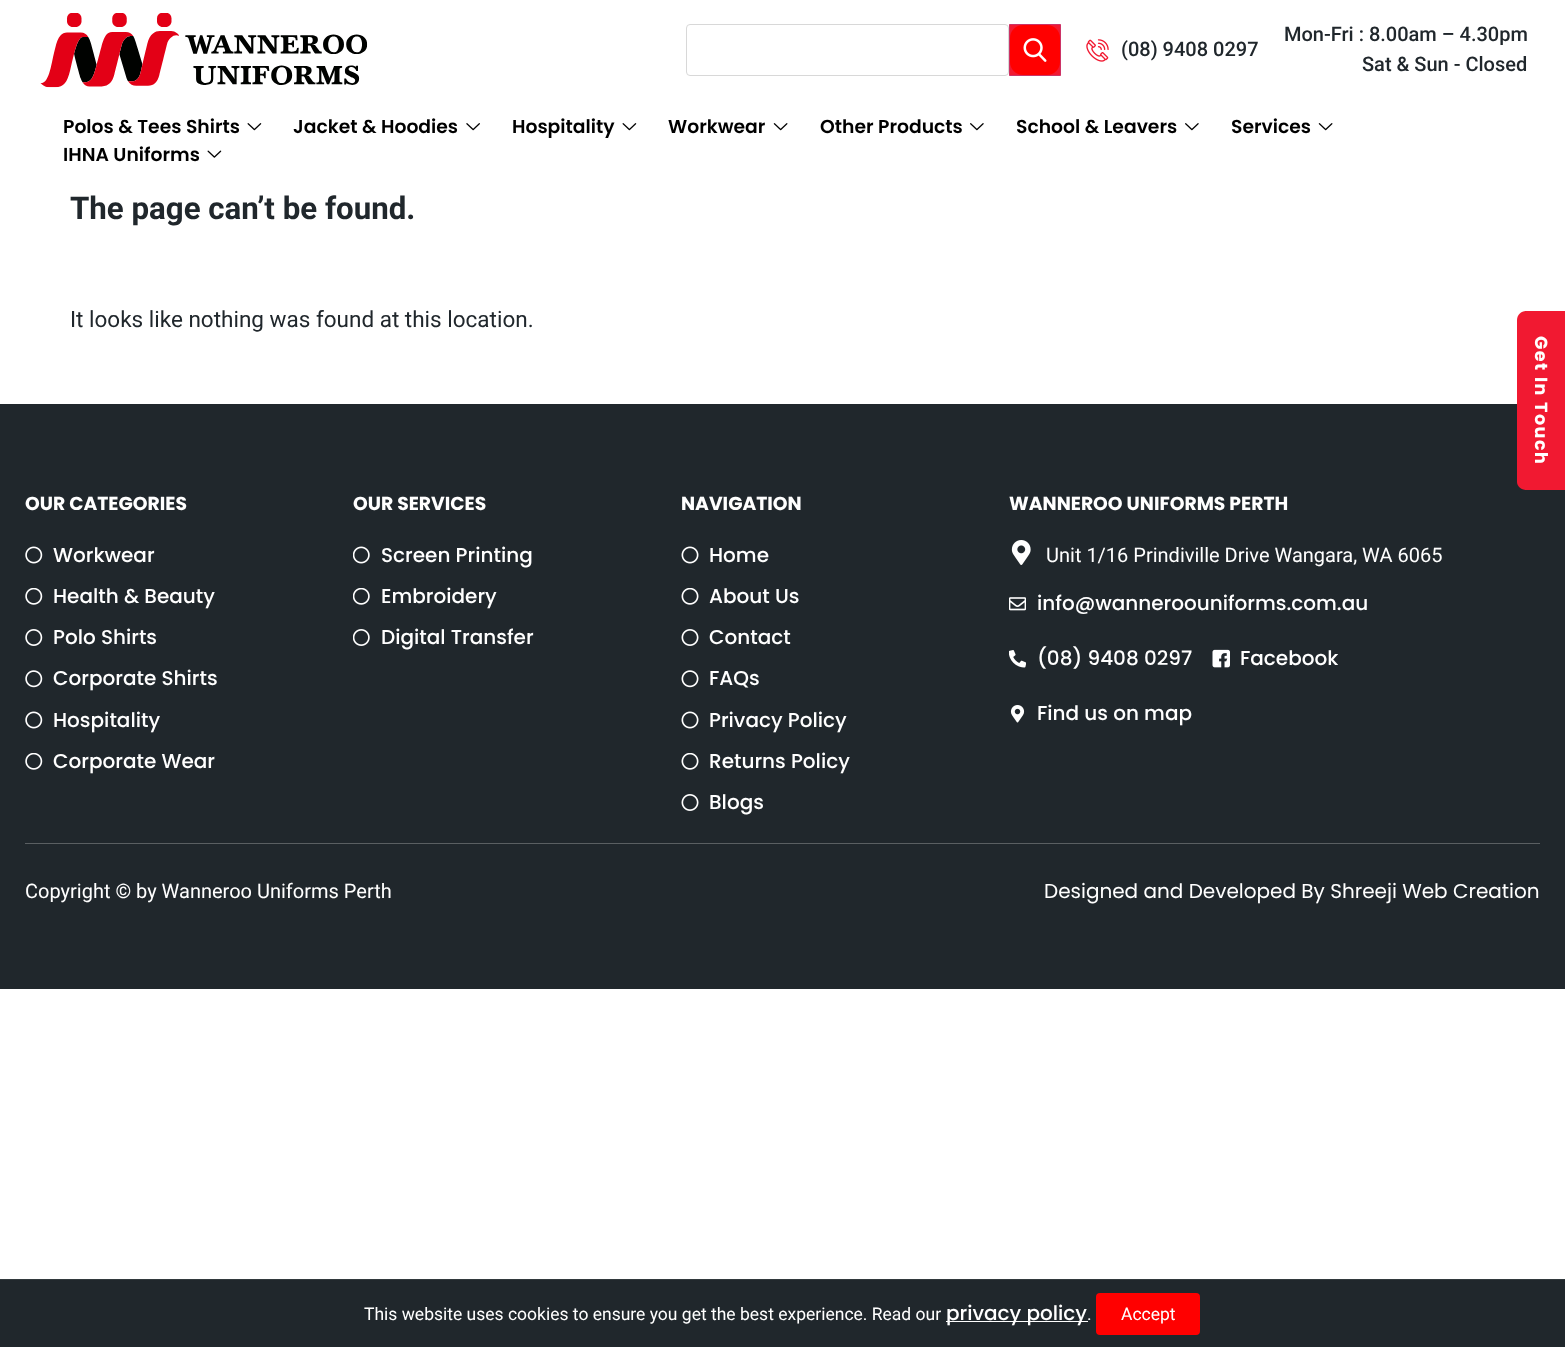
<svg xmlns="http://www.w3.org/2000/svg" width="1565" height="1347">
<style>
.a{font:500 20px Roboto;fill:#20272c}
.b{font:600 18.75px Poppins;fill:#000}
.c{font:bold 31.25px Roboto;fill:#20272c}
.d{font:22.5px Roboto;fill:#20272c}
.e{font:bold 17.5px Poppins;letter-spacing:1.5px;fill:#fff}
.f{font:bold 18.75px Poppins;fill:#fff}
.g{font:500 20px Poppins;fill:#fff}
.h{font:20px Roboto;fill:#fff}
.i{font:20px Poppins;fill:#fff}
.j{font:17.5px Roboto;fill:#fff}
</style>
<rect width="100%" height="100%" fill="#fff"/>
<image href="1.png" x="40" y="13" width="328" height="75"/>
<rect fill="none" stroke="#d8d8d8" x="686.5" y="24.5" width="322" height="51" rx="3.5"/>
<path fill="#f11931" stroke="#c36" d="M1009.5 24.5h51v51H1009.5z"/>
<image href="2.png" x="1010" y="25" width="50" height="50"/>
<image href="3.png" x="1086" y="39" width="23" height="23"/>
<image href="4.png" x="247" y="123" width="15" height="8"/>
<image href="5.png" x="466" y="123" width="14" height="8"/>
<image href="4.png" x="622" y="123" width="15" height="8"/>
<image href="6.png" x="773" y="123" width="15" height="8"/>
<image href="7.png" x="970" y="123" width="14" height="8"/>
<image href="7.png" x="1185" y="123" width="14" height="8"/>
<image href="6.png" x="1318" y="123" width="15" height="8"/>
<image href="8.png" x="207" y="150" width="15" height="8"/>
<path fill="#20272c" d="M0 404h1565v585H0z"/>
<path fill="#f11931" d="M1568 311v179h-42c-5 0-9-4-9-8v-162c0-5 4-9 9-9z"/>
<image href="9.png" x="25" y="546" width="18" height="18"/>
<image href="10.png" x="25" y="588" width="18" height="17"/>
<image href="11.png" x="25" y="629" width="18" height="17"/>
<image href="12.png" x="25" y="670" width="18" height="18"/>
<image href="9.png" x="25" y="711" width="18" height="18"/>
<image href="10.png" x="25" y="753" width="18" height="17"/>
<image href="13.png" x="353" y="546" width="17" height="18"/>
<image href="14.png" x="353" y="588" width="17" height="17"/>
<image href="15.png" x="353" y="629" width="17" height="17"/>
<image href="16.png" x="681" y="546" width="18" height="18"/>
<image href="17.png" x="681" y="588" width="18" height="17"/>
<image href="18.png" x="681" y="629" width="18" height="17"/>
<image href="19.png" x="681" y="670" width="18" height="18"/>
<image href="16.png" x="681" y="711" width="18" height="18"/>
<image href="17.png" x="681" y="753" width="18" height="17"/>
<image href="18.png" x="681" y="794" width="18" height="17"/>
<image href="20.png" x="1011" y="540" width="20" height="25"/>
<image href="21.png" x="1009" y="597" width="17" height="14"/>
<image href="22.png" x="1009" y="650" width="17" height="18"/>
<image href="23.png" x="1212" y="649" width="18" height="19"/>
<image href="24.png" x="1010" y="705" width="15" height="18"/>
<path fill="#5a5f62" d="M25 843h1515v1H25z"/>
<path fill="#20272c" d="M0 1280h1565v67H0z"/>
<path fill="#32393d" d="M0 1279h1565v1H0z"/>
<path fill="#fff" d="M946 1321h142v1H946z"/>
<rect fill="#f00" x="1096" y="1293" width="104" height="42" rx="4"/>
<text class="a" x="1121" y="56">(08) 9408 0297</text>
<text class="a" x="1284" y="41">Mon-Fri : 8.00am – 4.30pm</text>
<text class="a" x="1362" y="71">Sat &amp; Sun - Closed</text>
<text class="b" x="63" y="133">Polos &amp; Tees Shirts</text>
<text class="b" x="293" y="133">Jacket &amp; Hoodies</text>
<text class="b" x="512" y="133">Hospitality</text>
<text class="b" x="668" y="133">Workwear</text>
<text class="b" x="820" y="133">Other Products</text>
<text class="b" x="1016" y="133">School &amp; Leavers</text>
<text class="b" x="1231" y="133">Services</text>
<text class="b" x="63" y="161">IHNA Uniforms</text>
<text class="c" x="70" y="219">The page can’t be found.</text>
<text class="d" x="70" y="327">It looks like nothing was found at this location.</text>
<text class="e" x="1535" y="336" transform="rotate(90 1535 336)">Get In Touch</text>
<text class="f" x="25" y="510">OUR CATEGORIES</text>
<text class="g" x="53" y="562">Workwear</text>
<text class="g" x="53" y="603">Health &amp; Beauty</text>
<text class="g" x="53" y="644">Polo Shirts</text>
<text class="g" x="53" y="685">Corporate Shirts</text>
<text class="g" x="53" y="727">Hospitality</text>
<text class="g" x="53" y="768">Corporate Wear</text>
<text class="f" x="353" y="510">OUR SERVICES</text>
<text class="g" x="381" y="562">Screen Printing</text>
<text class="g" x="381" y="603">Embroidery</text>
<text class="g" x="381" y="644">Digital Transfer</text>
<text class="f" x="681" y="510">NAVIGATION</text>
<text class="g" x="709" y="562">Home</text>
<text class="g" x="709" y="603">About Us</text>
<text class="g" x="709" y="644">Contact</text>
<text class="g" x="709" y="685">FAQs</text>
<text class="g" x="709" y="727">Privacy Policy</text>
<text class="g" x="709" y="768">Returns Policy</text>
<text class="g" x="709" y="809">Blogs</text>
<text class="f" x="1009" y="510">WANNEROO UNIFORMS PERTH</text>
<text class="h" x="1046" y="562">Unit 1/16 Prindiville Drive Wangara, WA 6065</text>
<text class="g" x="1037" y="610">info@wanneroouniforms.com.au</text>
<text class="g" x="1037" y="665">(08) 9408 0297</text>
<text class="g" x="1240" y="665">Facebook</text>
<text class="g" x="1037" y="720">Find us on map</text>
<text class="h" x="25" y="898">Copyright © by Wanneroo Uniforms Perth</text>
<text class="i" x="1044" y="898">Designed and Developed By Shreeji Web Creation</text>
<text class="j" x="364" y="1320">This website uses cookies to ensure you get the best experience. Read our</text>
<text class="g" x="946" y="1320">privacy policy</text>
<text class="j" x="1087" y="1320">.</text>
<text class="j" x="1121" y="1320">Accept</text>
</svg>
